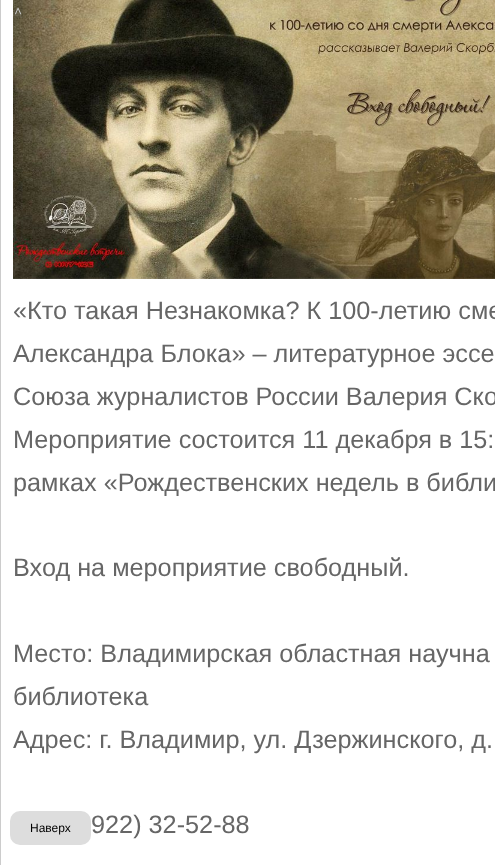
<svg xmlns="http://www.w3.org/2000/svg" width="495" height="865">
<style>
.a{font:bold 14px Liberation Serif;fill:#ccc}
.b{font:12px Liberation Sans;fill:#000}
.c{font:25.25px Liberation Sans;fill:#666}
</style>
<rect width="100%" height="100%" fill="#fff"/>
<rect fill="#ddd" x="10" y="811" width="81" height="34" rx="10"/>
<path fill="#ccc" d="M0 0h1v865H0z"/>
<image href="1.png" x="13" y="0" width="482" height="279"/>
<text class="a" x="14" y="17">^</text>
<text class="b" x="30" y="832">Наверх</text>
<text class="c" x="13" y="319">«Кто такая Незнакомка? К 100-летию сме</text>
<text class="c" x="13" y="362">Александра Блока» – литературное эссе</text>
<text class="c" x="13" y="405">Союза журналистов России Валерия Ско</text>
<text class="c" x="13" y="448">Мероприятие состоится 11 декабря в 15:</text>
<text class="c" x="13" y="491">рамках «Рождественских недель в библи</text>
<text class="c" x="13" y="576">Вход на мероприятие свободный.</text>
<text class="c" x="13" y="662">Место: Владимирская областная научна</text>
<text class="c" x="13" y="705">библиотека</text>
<text class="c" x="13" y="748">Адрес: г. Владимир, ул. Дзержинского, д.</text>
<text class="c" x="91" y="833">922) 32-52-88</text>
</svg>
